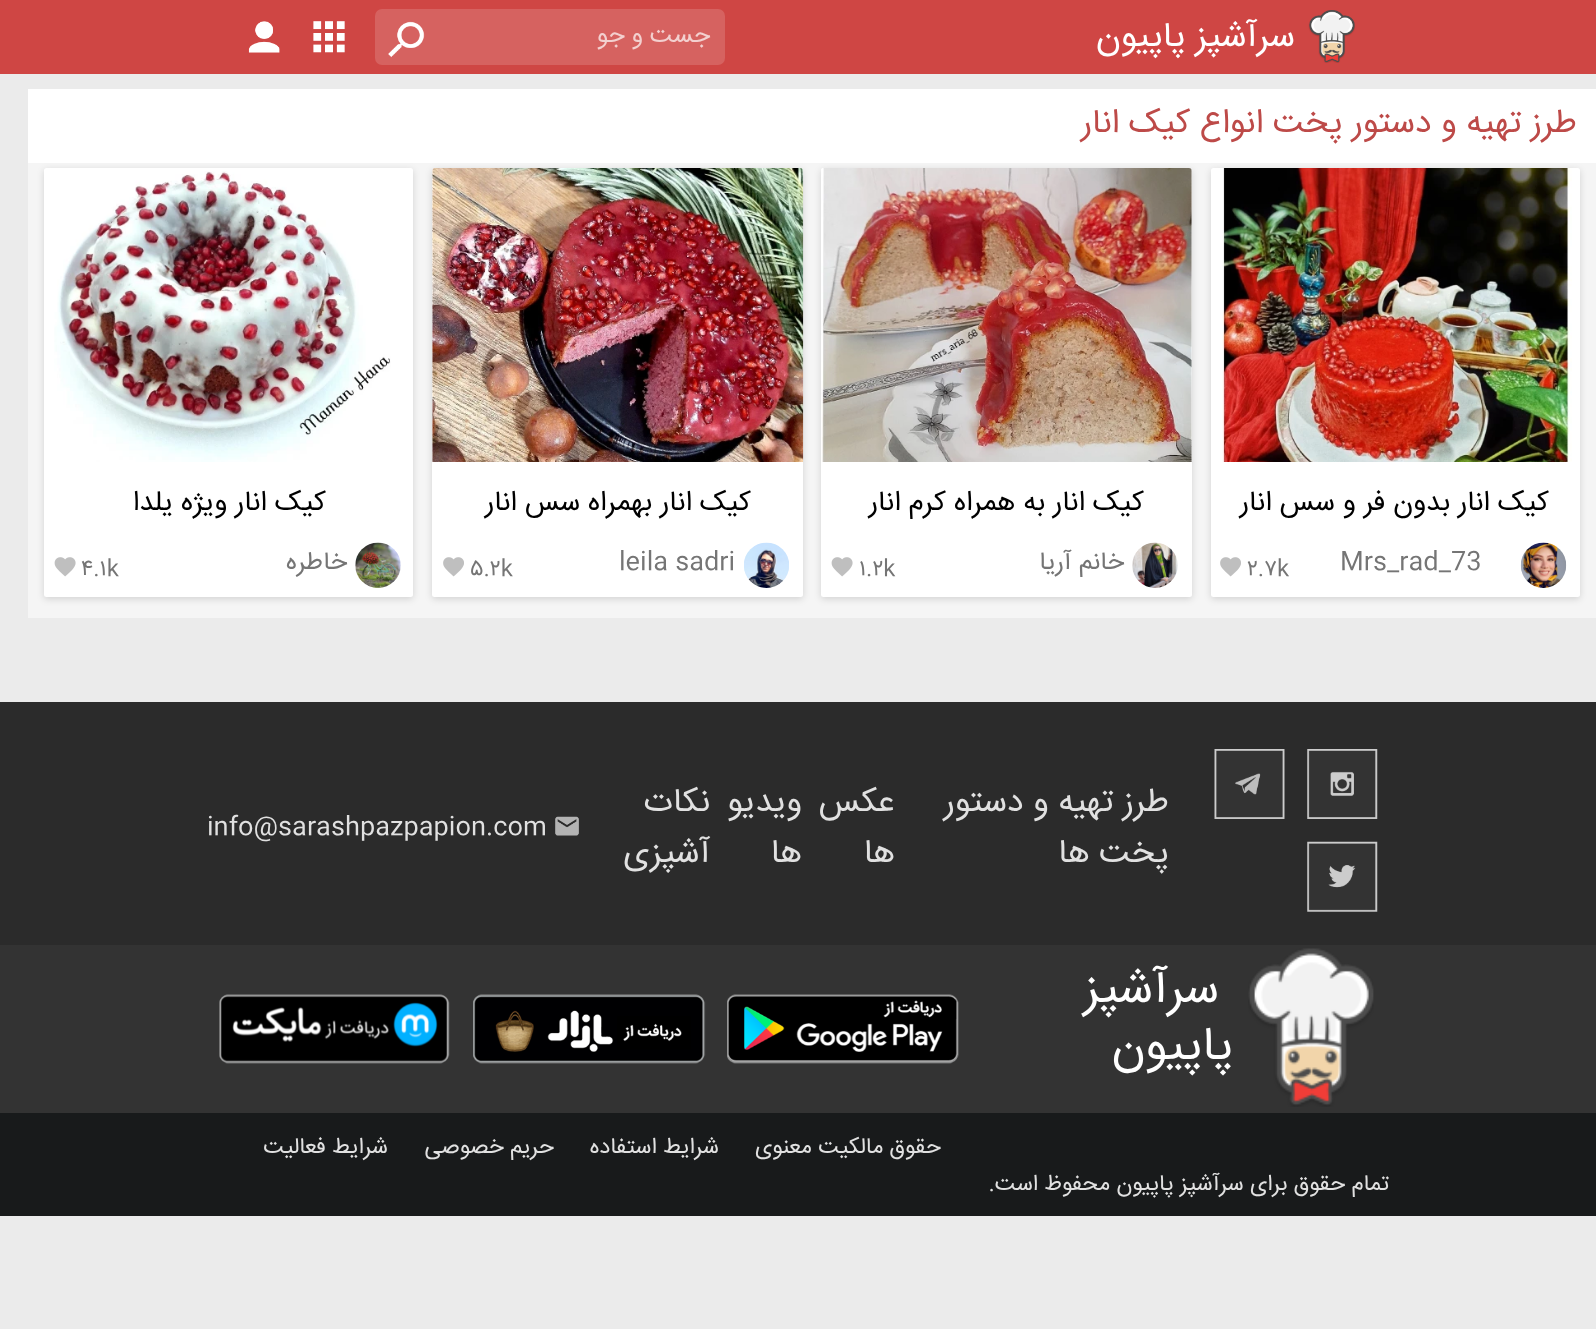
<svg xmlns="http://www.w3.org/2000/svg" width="1596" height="1329">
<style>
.a{font:35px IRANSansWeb;direction:rtl;fill:#fff}
.b{font:24.5px IRANSansWeb;direction:rtl;fill:#f3d0cf}
.c{font:33.6px IRANSansWeb;direction:rtl;fill:#bd4a48}
.d{font:28px IRANSansWeb;direction:rtl;fill:#000}
.e{font:25.25px IRANSansWeb;fill:#757575}
.f{font:22.4px IRANSansWeb;fill:#757575}
.g{font:25.25px IRANSansWeb;direction:rtl;fill:#757575}
.h{font:33.6px IRANSansWeb;direction:rtl;fill:#e1e1e1}
.i{font:25.25px IRANSansWeb;fill:#e1e1e1}
.j{font:47.5px IRANSansWeb;direction:rtl;fill:#fff}
.k{font:22.4px IRANSansWeb;direction:rtl;fill:#e1e1e1}
</style>
<rect width="100%" height="100%" fill="#ebebeb"/>
<path fill="#cf4644" d="M0 0h1596v74H0z"/>
<image href="1.png" x="1308" y="10" width="47" height="53"/>
<rect fill="#d66260" x="375" y="9" width="350" height="56" rx="7"/>
<image href="2.png" x="388" y="21" width="37" height="37"/>
<image href="3.png" x="313" y="21" width="32" height="32"/>
<image href="4.png" x="248" y="21" width="32" height="32"/>
<path fill="#fff" d="M28 89h1568v74H28z"/>
<path fill="#f5f5f5" d="M28 163h1568v455H28z"/>
<rect fill="#00000024" filter="blur(3.5px)" x="1211" y="170" width="369" height="429" rx="2.5"/>
<rect fill="#fff" x="1211" y="168" width="369" height="429" rx="2.5"/>
<image href="5.png" x="1222" y="168" width="350" height="294"/>
<image href="6.png" x="1520" y="542" width="47" height="46"/>
<image href="7.png" x="1220" y="557" width="21" height="20"/>
<rect fill="#00000024" filter="blur(3.5px)" x="821" y="170" width="371" height="429" rx="2.5"/>
<rect fill="#fff" x="821" y="168" width="371" height="429" rx="2.5"/>
<image href="8.png" x="821" y="168" width="371" height="294"/>
<image href="9.png" x="1132" y="542" width="46" height="46"/>
<image href="10.png" x="831" y="557" width="22" height="20"/>
<rect fill="#00000024" filter="blur(3.5px)" x="432" y="170" width="371" height="429" rx="2.5"/>
<rect fill="#fff" x="432" y="168" width="371" height="429" rx="2.5"/>
<image href="11.png" x="432" y="168" width="372" height="294"/>
<image href="12.png" x="744" y="542" width="45" height="46"/>
<image href="7.png" x="443" y="557" width="21" height="20"/>
<rect fill="#00000024" filter="blur(3.5px)" x="44" y="170" width="369" height="429" rx="2.5"/>
<rect fill="#fff" x="44" y="168" width="369" height="429" rx="2.5"/>
<image href="13.png" x="54" y="171" width="337" height="291"/>
<image href="14.png" x="355" y="542" width="46" height="46"/>
<image href="10.png" x="54" y="557" width="22" height="20"/>
<path fill="#2b2b2b" d="M0 702h1596v243H0z"/>
<image href="15.png" x="1307" y="749" width="71" height="70"/>
<image href="16.png" x="1214" y="749" width="71" height="70"/>
<image href="17.png" x="1307" y="841" width="71" height="71"/>
<image href="18.png" x="555" y="816" width="24" height="20"/>
<path fill="#333" d="M0 945h1596v168H0z"/>
<image href="19.png" x="1248" y="948" width="126" height="159"/>
<image href="20.png" x="727" y="994" width="232" height="70"/>
<image href="21.png" x="473" y="994" width="233" height="70"/>
<image href="22.png" x="219" y="994" width="231" height="70"/>
<path fill="#181a1b" d="M0 1113h1596v103H0z"/>
<text class="a" x="1295" y="46">سرآشپز پاپیون</text>
<text class="b" x="710" y="42">جست و جو</text>
<text class="c" x="1577" y="132">طرز تهیه و دستور پخت انواع کیک انار</text>
<text class="d" x="1549" y="510">کیک انار بدون فر و سس انار</text>
<text class="e" x="1340" y="569">Mrs_rad_73</text>
<text class="f" x="1247" y="575">۲.۷k</text>
<text class="d" x="1144" y="510">کیک انار به همراه کرم انار</text>
<text class="g" x="1124" y="569">خانم آریا</text>
<text class="f" x="859" y="575">۱.۲k</text>
<text class="d" x="751" y="510">کیک انار بهمراه سس انار</text>
<text class="e" x="619" y="569">leila sadri</text>
<text class="f" x="470" y="575">۵.۲k</text>
<text class="d" x="326" y="510">کیک انار ویژه یلدا</text>
<text class="g" x="347" y="569">خاطره</text>
<text class="f" x="81" y="575">۴.۱k</text>
<text class="h" x="1169" y="811">طرز تهیه و دستور</text>
<text class="h" x="1169" y="862">پخت ها</text>
<text class="h" x="895" y="811">عکس</text>
<text class="h" x="895" y="862">ها</text>
<text class="h" x="802" y="811">ویدیو</text>
<text class="h" x="802" y="862">ها</text>
<text class="h" x="710" y="811">نکات</text>
<text class="h" x="710" y="862">آشپزی</text>
<text class="i" x="207" y="834">info@sarashpazpapion.com</text>
<text class="j" x="1219" y="1002">سرآشپز</text>
<text class="j" x="1233" y="1059">پاپیون</text>
<text class="k" x="941" y="1153">حقوق مالکیت معنوی</text>
<text class="k" x="719" y="1153">شرایط استفاده</text>
<text class="k" x="554" y="1153">حریم خصوصی</text>
<text class="k" x="388" y="1153">شرایط فعالیت</text>
<text class="k" x="1389" y="1190">تمام حقوق برای سرآشپز پاپیون محفوظ است.</text>
</svg>
